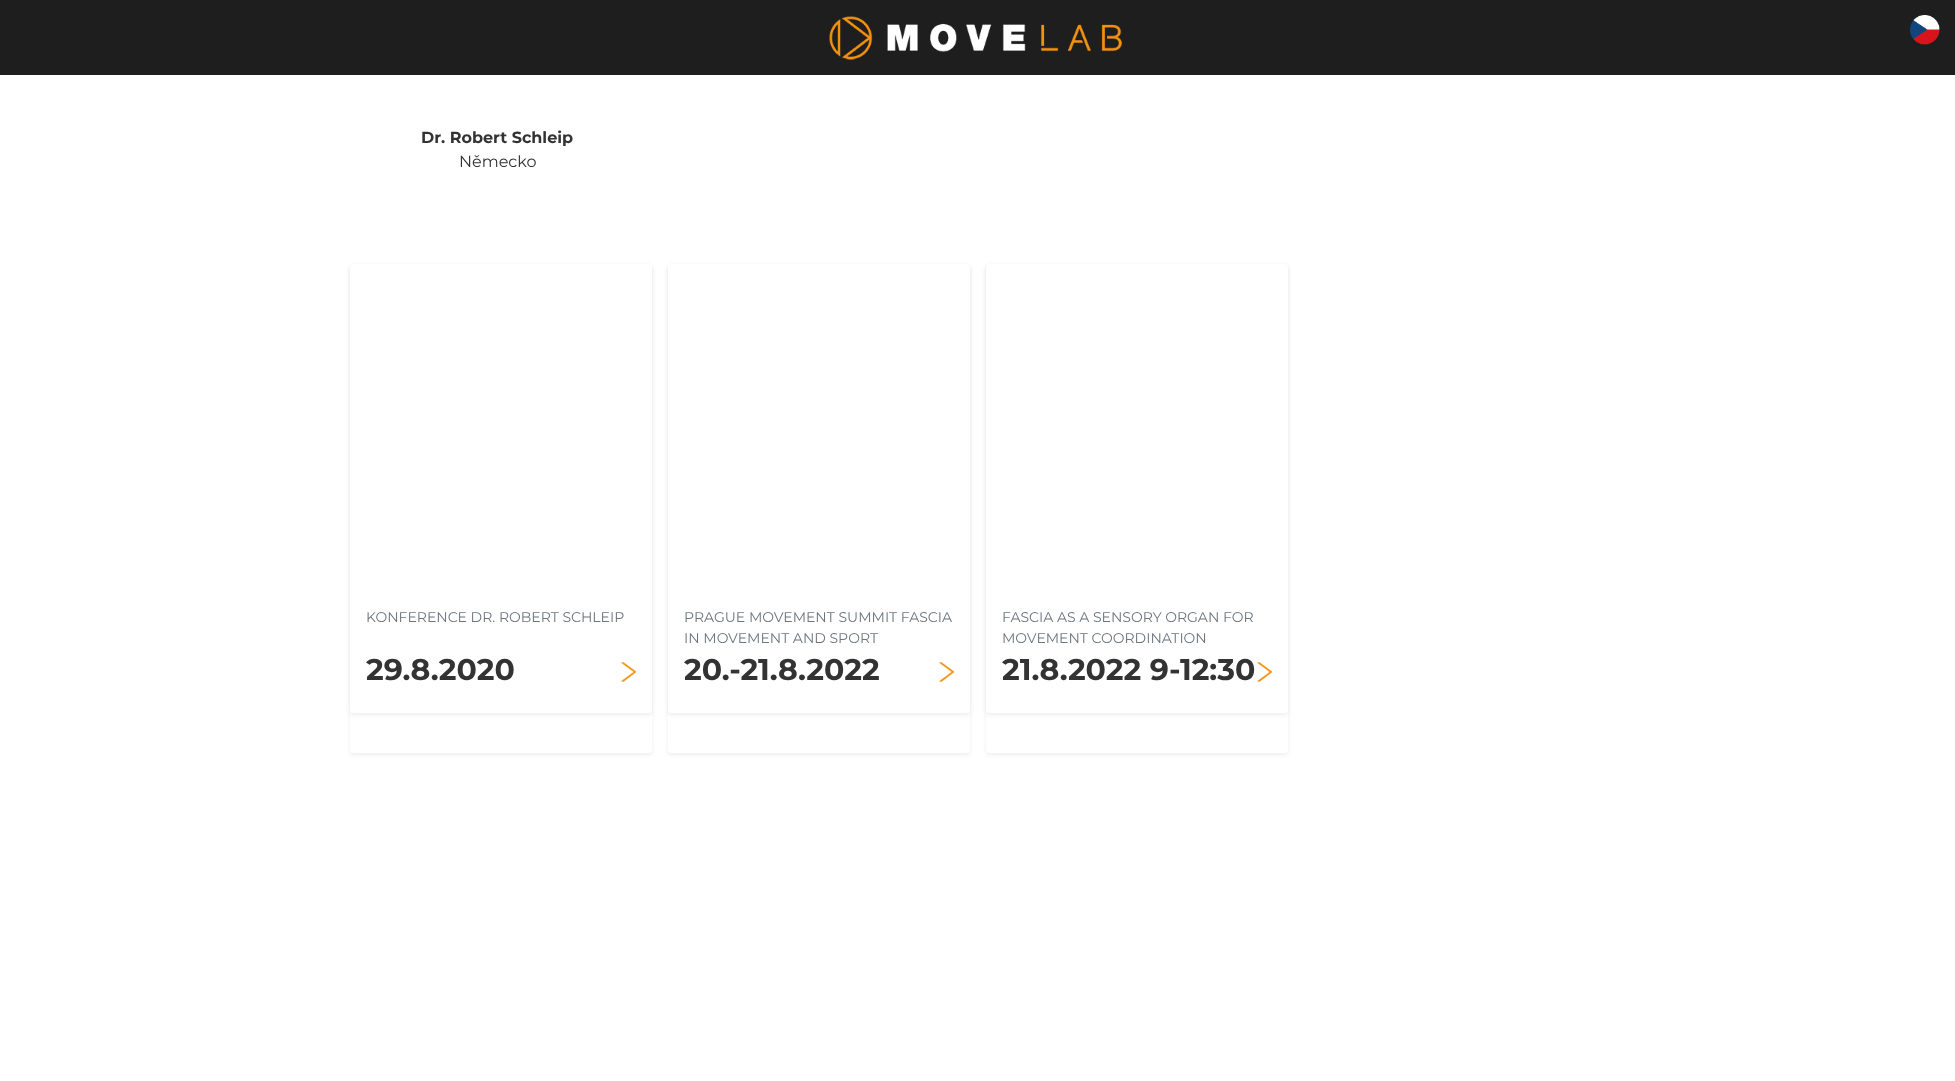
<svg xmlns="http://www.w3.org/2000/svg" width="1955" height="1081">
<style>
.a{font:bold 16px Montserrat;fill:#333}
.b{font:16px Montserrat;fill:#333}
.c{font:14px Montserrat;fill:#6c757d}
.d{font:bold 30px Montserrat;fill:#333}
</style>
<rect width="100%" height="100%" fill="#fff"/>
<path fill="#1e1e1e" d="M0 0h1955v75H0z"/>
<image href="1.png" x="829" y="16" width="293" height="44"/>
<image href="2.png" x="1910" y="15" width="30" height="30"/>
<rect fill="#00000012" filter="blur(2px)" x="350" y="266" width="302" height="489" rx="4"/>
<rect fill="#fff" x="350" y="264" width="302" height="489" rx="4"/>
<rect fill="#00000012" filter="blur(2px)" x="350" y="266" width="302" height="449" rx="4"/>
<rect fill="#fff" x="350" y="264" width="302" height="449" rx="4"/>
<image href="3.png" x="621" y="662" width="15" height="20"/>
<rect fill="#00000012" filter="blur(2px)" x="668" y="266" width="302" height="489" rx="4"/>
<rect fill="#fff" x="668" y="264" width="302" height="489" rx="4"/>
<rect fill="#00000012" filter="blur(2px)" x="668" y="266" width="302" height="449" rx="4"/>
<rect fill="#fff" x="668" y="264" width="302" height="449" rx="4"/>
<image href="3.png" x="939" y="662" width="15" height="20"/>
<rect fill="#00000012" filter="blur(2px)" x="986" y="266" width="302" height="489" rx="4"/>
<rect fill="#fff" x="986" y="264" width="302" height="489" rx="4"/>
<rect fill="#00000012" filter="blur(2px)" x="986" y="266" width="302" height="449" rx="4"/>
<rect fill="#fff" x="986" y="264" width="302" height="449" rx="4"/>
<image href="3.png" x="1257" y="662" width="15" height="20"/>
<text class="a" x="421" y="143">Dr. Robert Schleip</text>
<text class="b" x="459" y="167">Německo</text>
<text class="c" x="366" y="622">KONFERENCE DR. ROBERT SCHLEIP</text>
<text class="d" x="366" y="680">29.8.2020</text>
<text class="c" x="684" y="622">PRAGUE MOVEMENT SUMMIT FASCIA</text>
<text class="c" x="684" y="643">IN MOVEMENT AND SPORT</text>
<text class="d" x="684" y="680">20.-21.8.2022</text>
<text class="c" x="1002" y="622">FASCIA AS A SENSORY ORGAN FOR</text>
<text class="c" x="1002" y="643">MOVEMENT COORDINATION</text>
<text class="d" x="1002" y="680">21.8.2022 9-12:30</text>
</svg>
